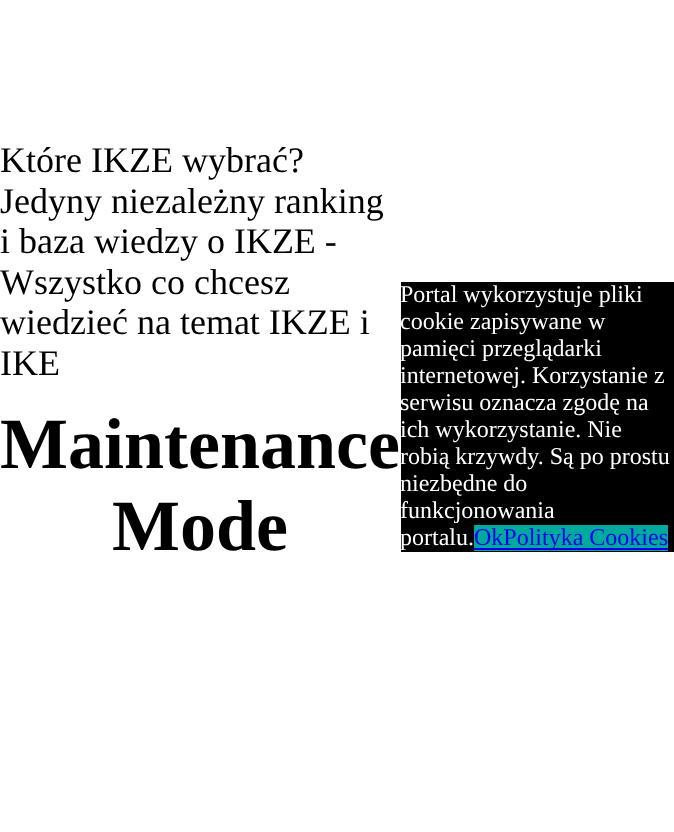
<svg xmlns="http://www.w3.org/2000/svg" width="674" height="832">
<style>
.a{font:36px Liberation Serif;fill:#000}
.b{font:bold 72px Liberation Serif;fill:#000}
.c{font:24px Liberation Serif;fill:#fff}
.d{font:24px Liberation Serif;fill:#00e}
</style>
<rect width="100%" height="100%" fill="#fff"/>
<path fill="#000" d="M401 282h273v270H401z"/>
<path fill="#00a99d" d="M474 525h194v26H474z"/>
<path fill="#00e" d="M474 548h194v2H474z"/>
<text class="a" x="0" y="172">Które IKZE wybrać?</text>
<text class="a" x="0" y="213">Jedyny niezależny ranking</text>
<text class="a" x="0" y="253">i baza wiedzy o IKZE -</text>
<text class="a" x="0" y="294">Wszystko co chcesz</text>
<text class="a" x="0" y="334">wiedzieć na temat IKZE i</text>
<text class="a" x="0" y="375">IKE</text>
<text class="b" x="0" y="468">Maintenance</text>
<text class="b" x="112" y="550">Mode</text>
<text class="c" x="400" y="302">Portal wykorzystuje pliki</text>
<text class="c" x="400" y="329">cookie zapisywane w</text>
<text class="c" x="400" y="356">pamięci przeglądarki</text>
<text class="c" x="400" y="383">internetowej. Korzystanie z</text>
<text class="c" x="400" y="410">serwisu oznacza zgodę na</text>
<text class="c" x="400" y="437">ich wykorzystanie. Nie</text>
<text class="c" x="400" y="464">robią krzywdy. Są po prostu</text>
<text class="c" x="400" y="491">niezbędne do</text>
<text class="c" x="400" y="518">funkcjonowania</text>
<text class="c" x="400" y="545">portalu.</text>
<text class="d" x="474" y="545">OkPolityka Cookies</text>
</svg>
